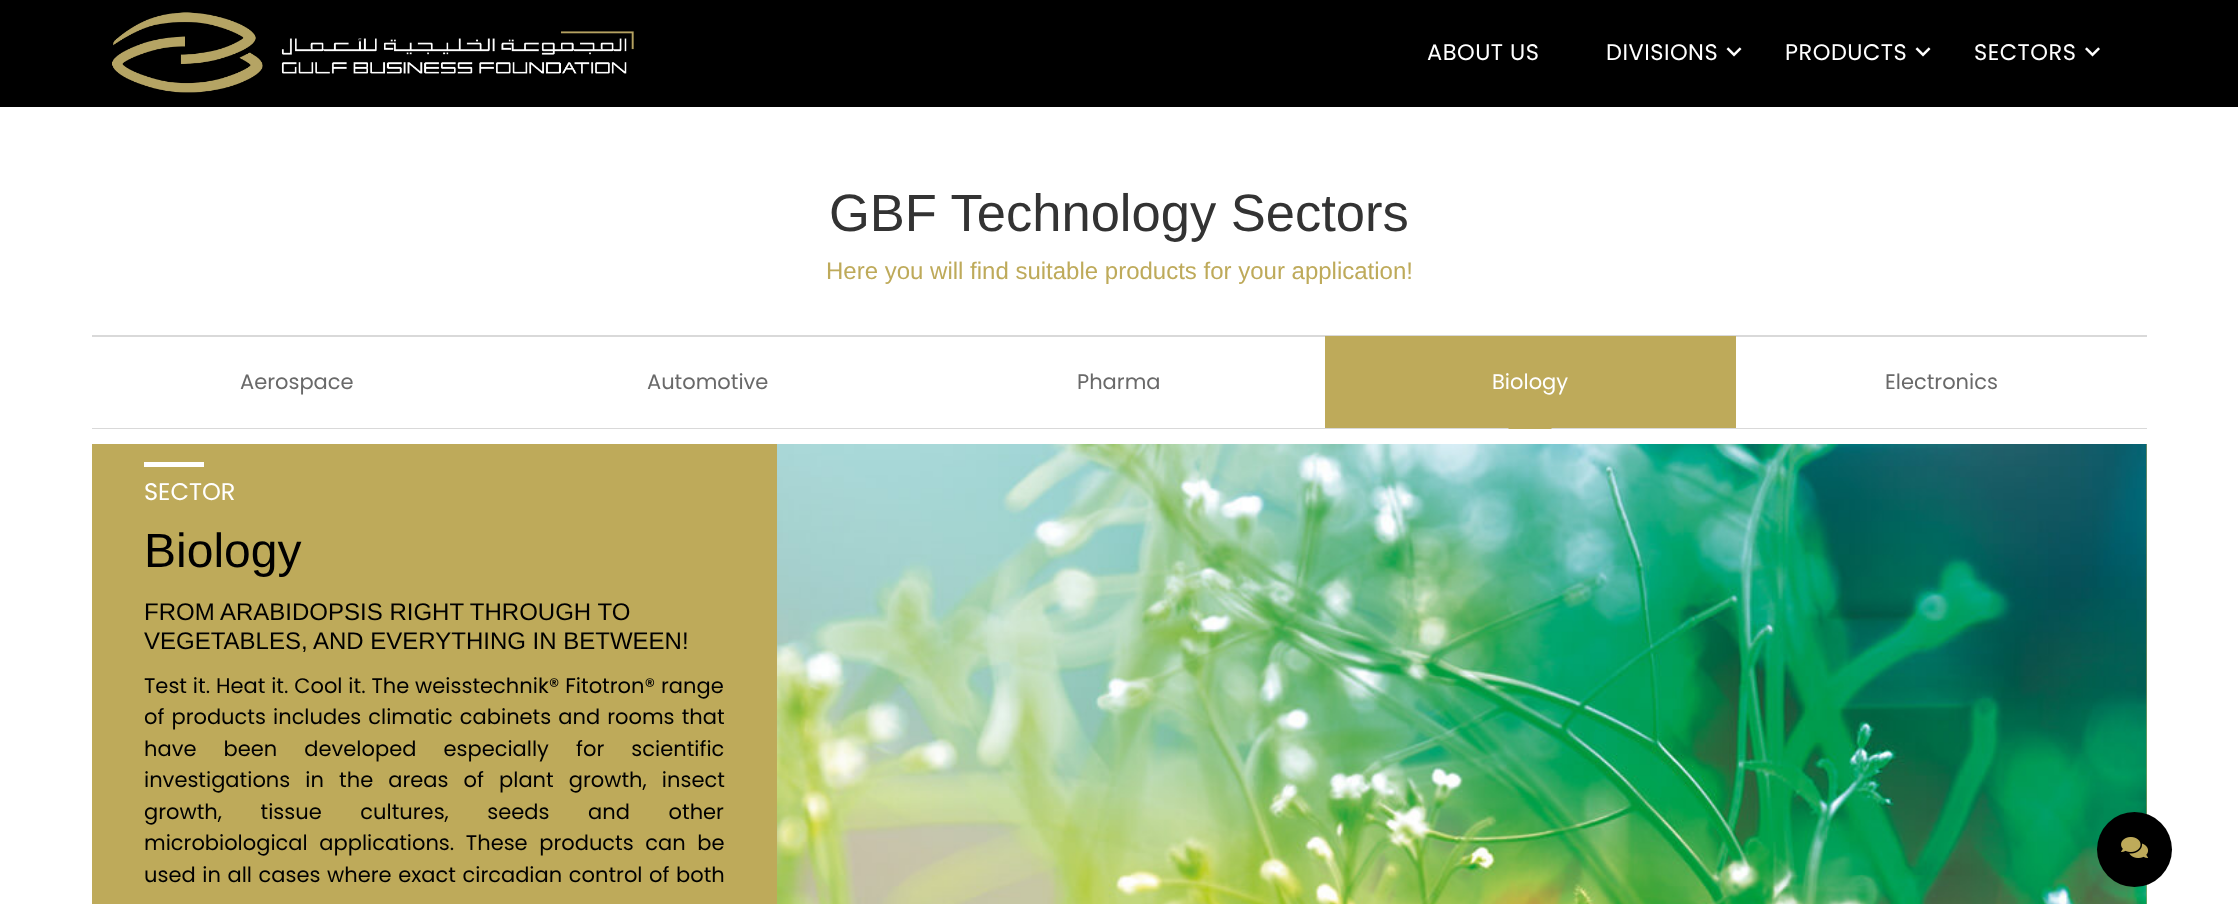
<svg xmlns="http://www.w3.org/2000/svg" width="2238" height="904">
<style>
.a{font:22.5px Poppins;letter-spacing:0.5px;fill:#fff}
.b{font:52.5px Liberation Sans;fill:#333}
.c{font:24px Liberation Sans;fill:#beaa5a}
.d{font:21px Poppins;fill:#696969}
.e{font:21px Poppins;fill:#fff}
.f{font:24px Poppins;fill:#fff}
.g{font:48px Liberation Sans;fill:#000}
.h{font:24px Liberation Sans;fill:#000}
.i{font:21px Poppins;fill:#000}
</style>
<defs>
<clipPath id="clip1"><path d="M92 336h2055v93H92z"/></clipPath>
</defs>
<rect width="100%" height="100%" fill="#fff"/>
<path fill="#000" d="M0 0h2238v107H0z"/>
<image href="1.png" x="112" y="12" width="522" height="81"/>
<image href="2.png" x="1726" y="47" width="16" height="10"/>
<image href="2.png" x="1915" y="47" width="16" height="10"/>
<image href="3.png" x="2085" y="47" width="15" height="10"/>
<path fill="#d9d9d9" d="M92 335h2055v2H92z"/>
<path fill="#d9d9d9" d="M92 428h2055v1H92z"/>
<path fill="#beaa5a" d="M1325 336h411v92H1325z"/>
<g clip-path="url(#clip1)">
<path fill="#beaa5a" d="M1508 428h44l-22 22z"/>
</g>
<path fill="#beaa5a" d="M92 444h2055v460H92z"/>
<path fill="#fff" d="M144 462h60v5H144z"/>
<image href="4.png" x="777" y="444" width="1370" height="460"/>
<circle fill="#000" cx="2134.5" cy="849.5" r="37.5"/>
<image href="5.png" x="2121" y="837" width="28" height="21"/>
<text class="a" x="1427" y="60">ABOUT US</text>
<text class="a" x="1606" y="60">DIVISIONS</text>
<text class="a" x="1785" y="60">PRODUCTS</text>
<text class="a" x="1974" y="60">SECTORS</text>
<text class="b" x="829" y="231">GBF Technology Sectors</text>
<text class="c" x="826" y="279">Here you will find suitable products for your application!</text>
<text class="d" x="240" y="389">Aerospace</text>
<text class="d" x="647" y="389">Automotive</text>
<text class="d" x="1077" y="389">Pharma</text>
<text class="e" x="1492" y="389">Biology</text>
<text class="d" x="1885" y="389">Electronics</text>
<text class="f" x="144" y="500">SECTOR</text>
<text class="g" x="144" y="567">Biology</text>
<text class="h" x="144" y="620">FROM ARABIDOPSIS RIGHT THROUGH TO</text>
<text class="h" x="144" y="649">VEGETABLES, AND EVERYTHING IN BETWEEN!</text>
<text class="i" x="144" y="693" word-spacing="0.25">Test it. Heat it. Cool it. The weisstechnik® Fitotron® range</text>
<text class="i" x="144" y="724" word-spacing="1.5">of products includes climatic cabinets and rooms that</text>
<text class="i" x="144" y="756" word-spacing="21.5">have been developed especially for scientific</text>
<text class="i" x="144" y="787" word-spacing="9.5">investigations in the areas of plant growth, insect</text>
<text class="i" x="144" y="819" word-spacing="33">growth, tissue cultures, seeds and other</text>
<text class="i" x="144" y="850" word-spacing="6">microbiological applications. These products can be</text>
<text class="i" x="144" y="882" word-spacing="1">used in all cases where exact circadian control of both</text>
</svg>
